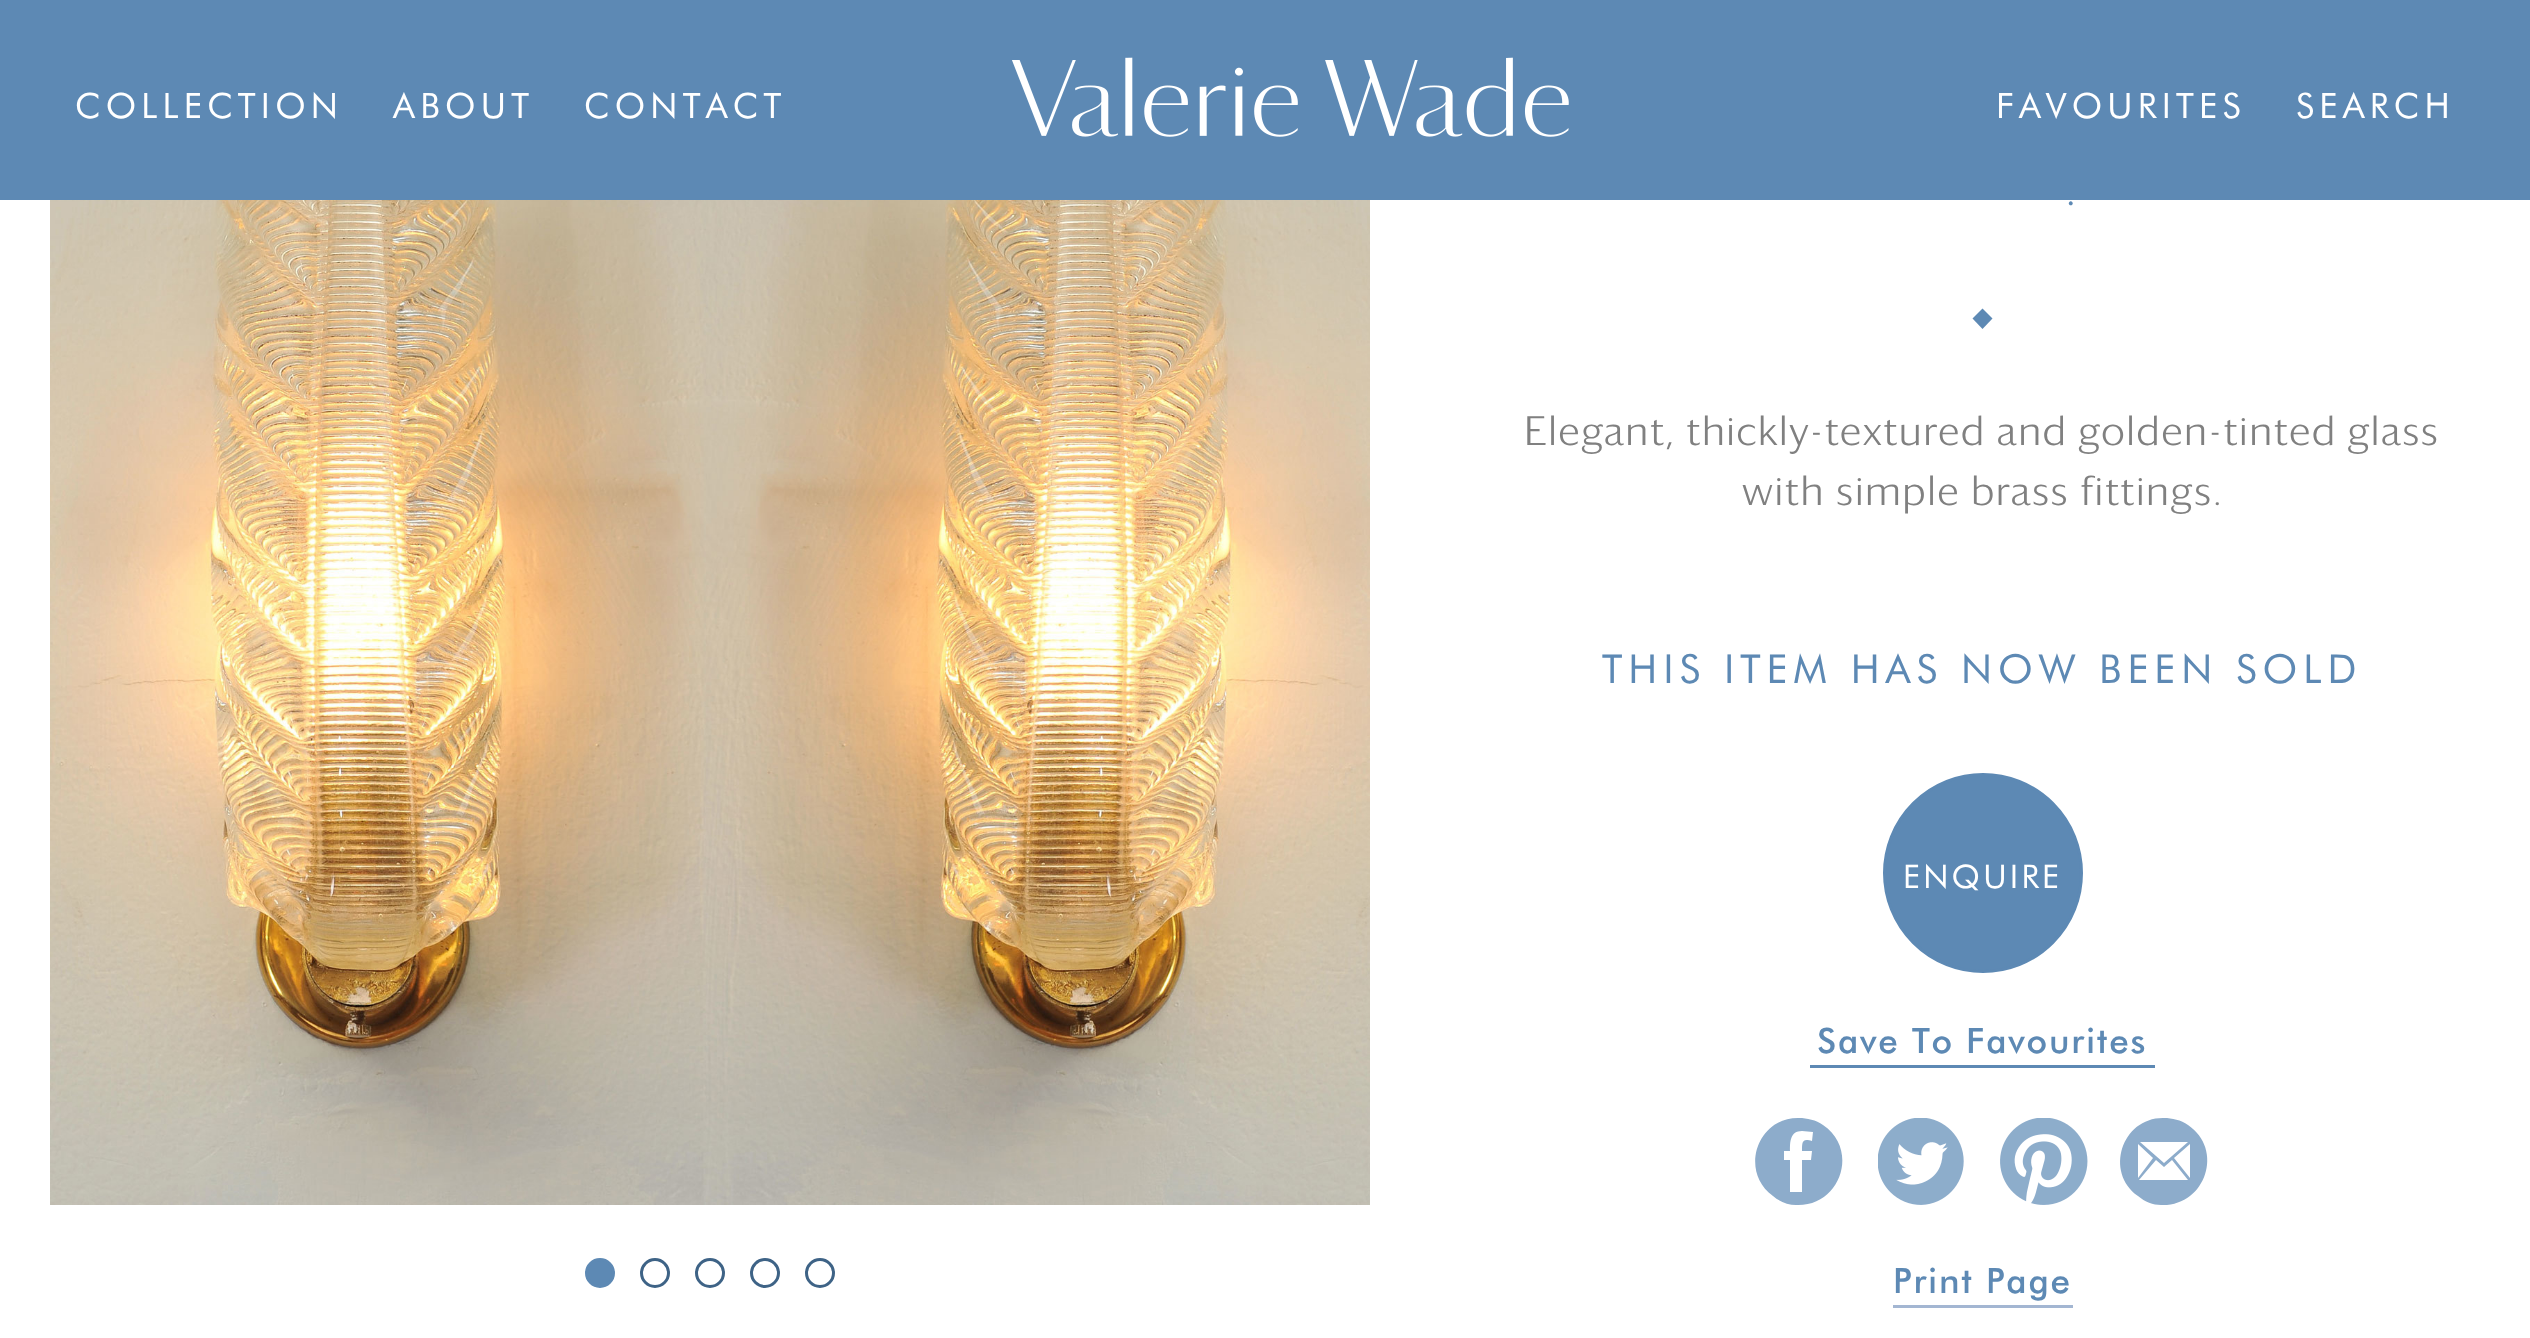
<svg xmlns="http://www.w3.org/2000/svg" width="2530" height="1338">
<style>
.a{font:35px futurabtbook;letter-spacing:5.25px;fill:#fff}
.b{font:300 40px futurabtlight;letter-spacing:2px;fill:#5d89b4}
.c{font:300 40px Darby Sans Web;letter-spacing:1.5px;fill:#808080}
.d{font:40px futurabtbook;letter-spacing:6px;fill:#5d89b4}
.e{font:32.5px futurabtbook;letter-spacing:3.25px;fill:#fff}
.f{font:500 35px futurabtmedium;letter-spacing:1.75px;fill:#5d89b4}
</style>
<rect width="100%" height="100%" fill="#fff"/>
<path fill="#5d89b4" d="M0 0h2530v200H0z"/>
<image href="1.png" x="1012" y="57" width="557" height="80"/>
<image href="2.png" x="50" y="200" width="1320" height="1005"/>
<circle fill="#5d89b4" stroke="#5d89b4" stroke-width="3" cx="600" cy="1273" r="13.5"/>
<circle fill="none" stroke="#3e6386" stroke-width="3" cx="655" cy="1273" r="13.5"/>
<circle fill="none" stroke="#3e6386" stroke-width="3" cx="710" cy="1273" r="13.5"/>
<circle fill="none" stroke="#3e6386" stroke-width="3" cx="765" cy="1273" r="13.5"/>
<circle fill="none" stroke="#3e6386" stroke-width="3" cx="820" cy="1273" r="13.5"/>
<path fill="#5d89b4" d="M1972.5 318.5l10-10l10 10l-10 10.5z"/>
<circle fill="#5d89b4" stroke="#5d89b4" stroke-width="3" cx="1983" cy="873" r="98.5"/>
<path fill="#5d89b4" d="M1810 1065h345v3H1810z"/>
<path fill="#8daccb" d="M1799 1118c-42-1-60 54-26 78c7 6 15 9 23 9c44 2 64-55 27-80c-7-5-16-7-24-7zm13 33l-1 9h-9v32h-12v-32h-6v-9h6c0-9 0-20 12-20l11 1l-1 9c-10-3-10 1-10 10z"/>
<image href="3.png" x="1878" y="1118" width="86" height="87"/>
<image href="4.png" x="2000" y="1118" width="88" height="87"/>
<path fill="#8daccb" d="M2164 1118c-42-1-60 54-26 78c7 6 15 9 23 9c44 2 64-55 27-80c-7-5-16-7-24-7zm24 24l-24 21l-24-21zm-50 0zm0 2l15 14l-15 20zm1 36l17-20l8 7l8-7l16 20zm51-2l-16-20l16-14z"/>
<path fill="#a3b6d2" d="M1893 1305h180v3H1893z"/>
<text class="a" x="75" y="118">COLLECTION</text>
<text class="a" x="393" y="118">ABOUT</text>
<text class="a" x="584" y="118">CONTACT</text>
<text class="a" x="1996" y="118">FAVOURITES</text>
<text class="a" x="2296" y="118">SEARCH</text>
<text class="b" x="2065" y="205">.</text>
<text class="c" x="1524" y="445">Elegant, thickly-textured and golden-tinted glass</text>
<text class="c" x="1742" y="505">with simple brass fittings.</text>
<text class="d" x="1602" y="683">THIS ITEM HAS NOW BEEN SOLD</text>
<text class="e" x="1903" y="888">ENQUIRE</text>
<text class="f" x="1817" y="1053">Save To Favourites</text>
<text class="f" x="1893" y="1293">Print Page</text>
</svg>
